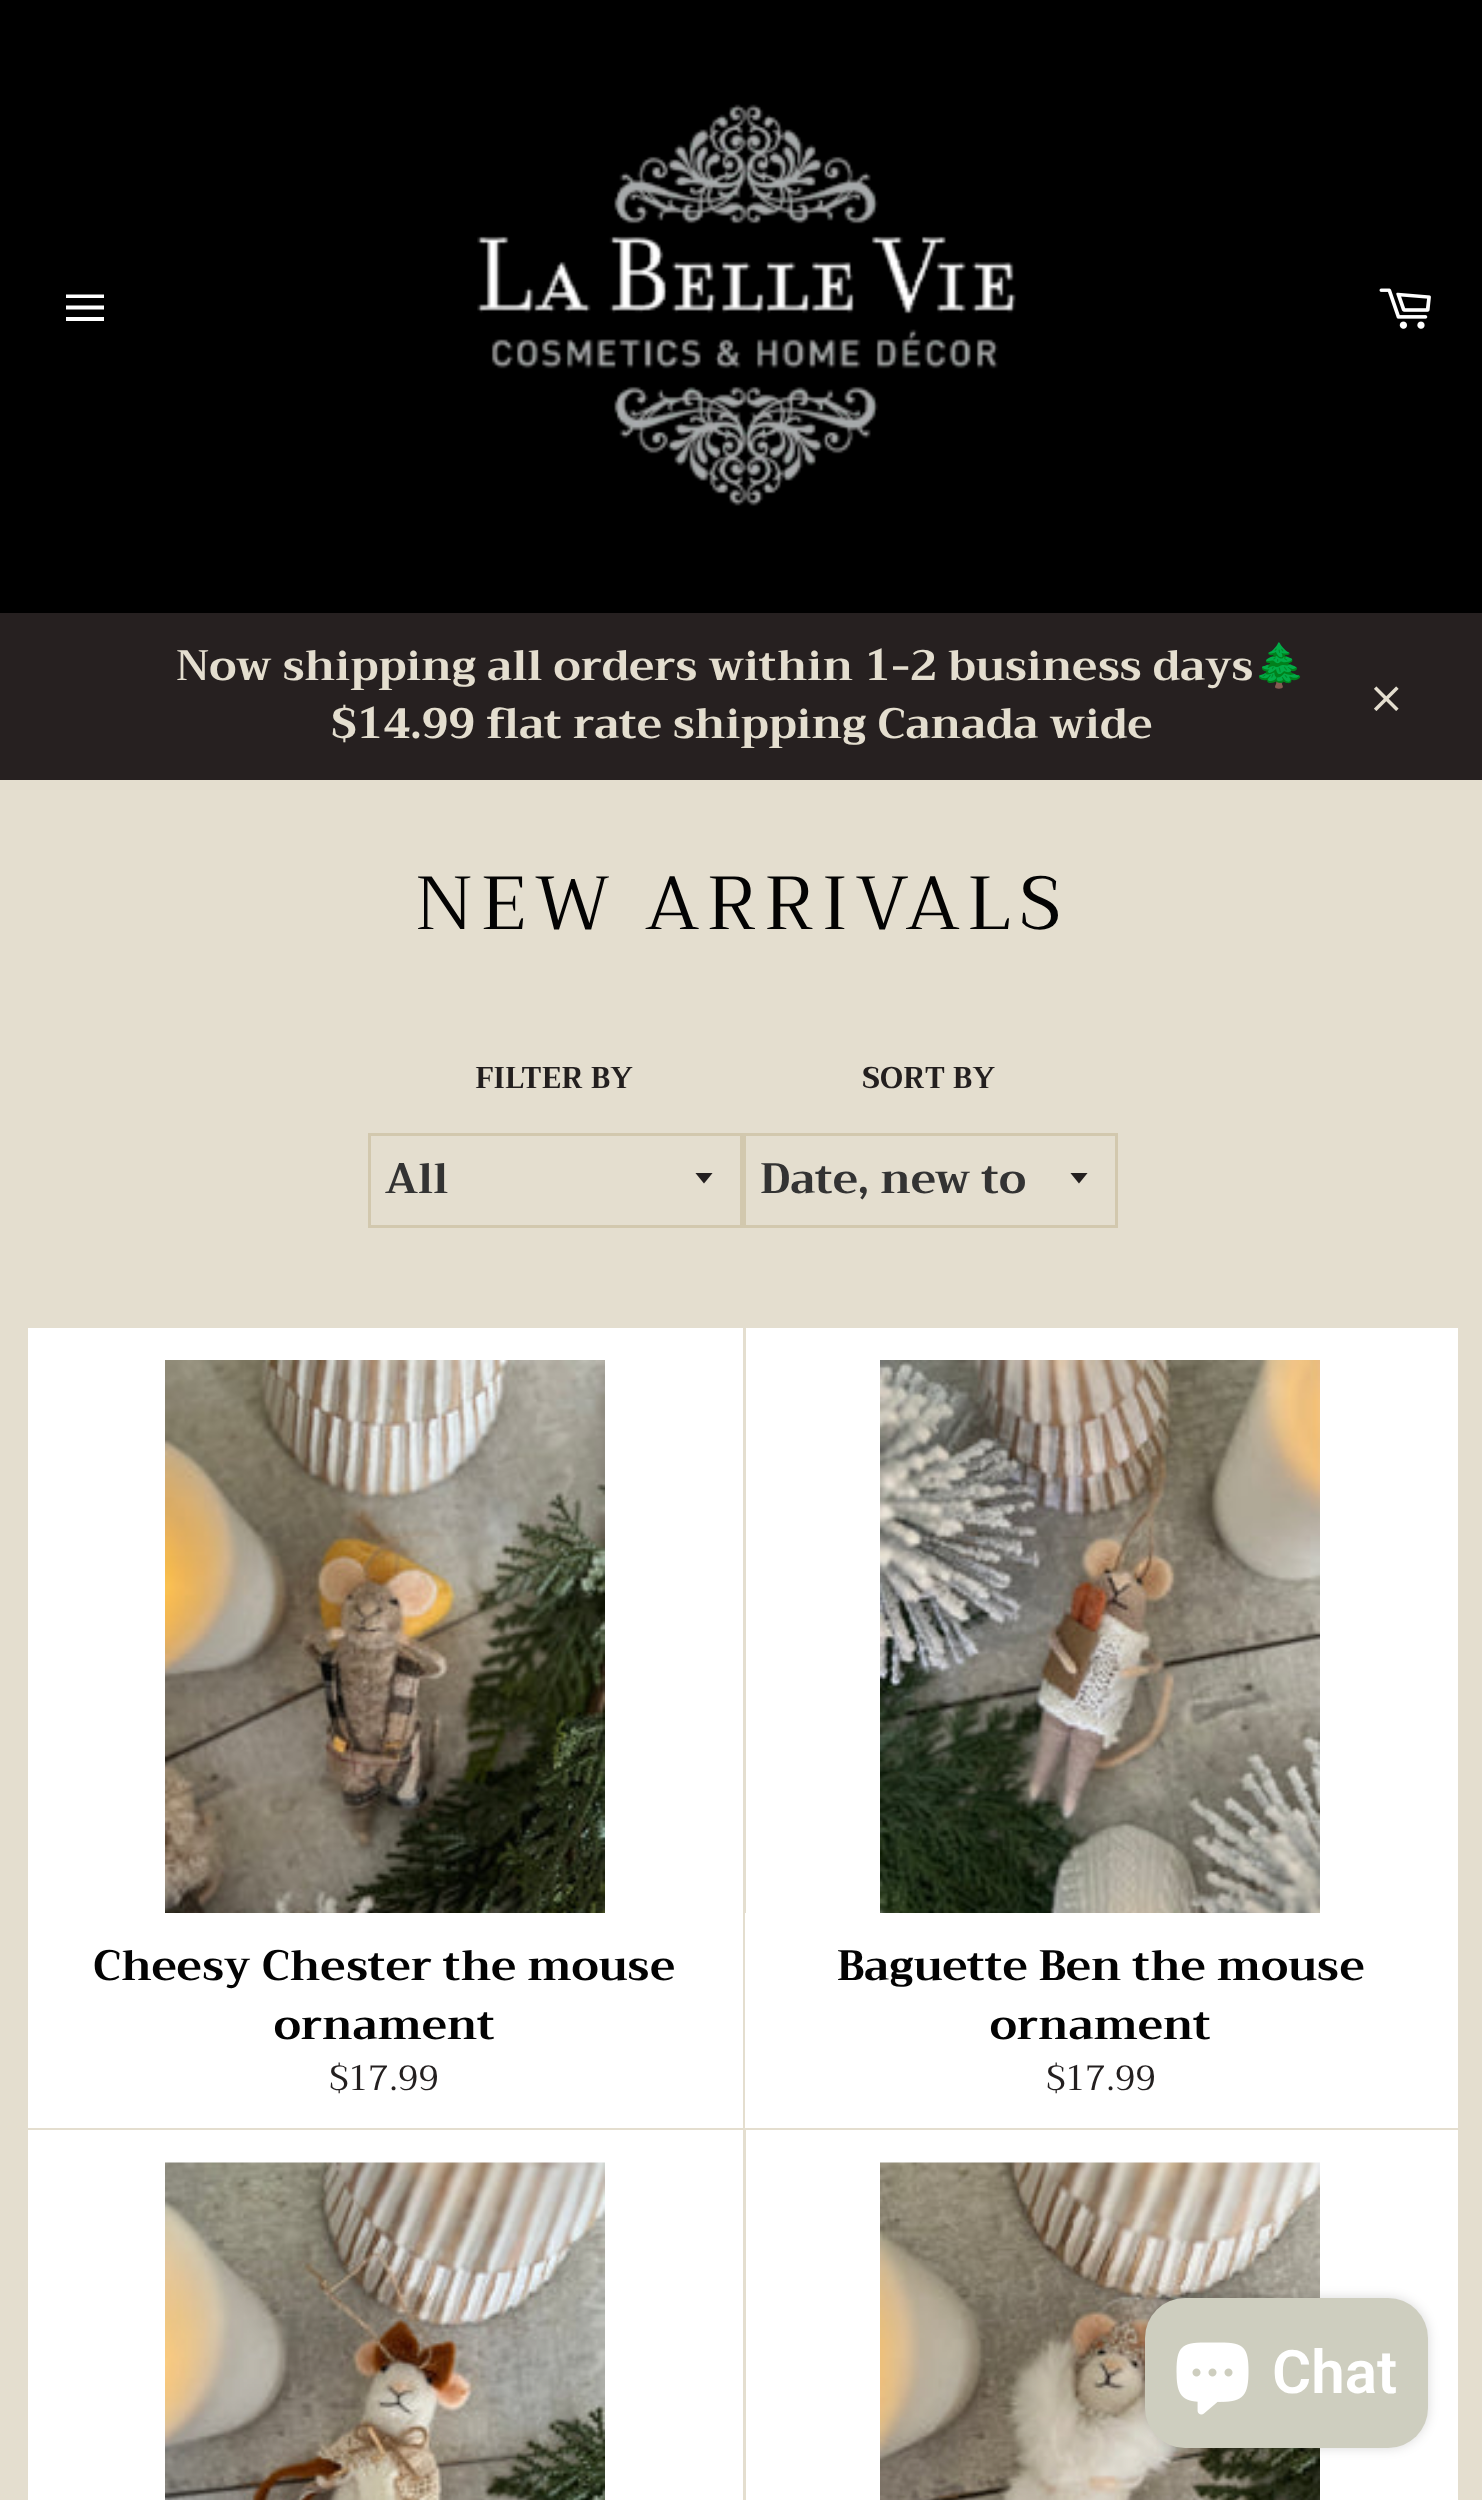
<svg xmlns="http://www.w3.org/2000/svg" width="1482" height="2500">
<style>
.a{font:bold 42.5px Trirong;fill:#e4decf}
.b{font:bold 42.5px Noto Color Emoji;fill:#e4decf}
.c{font:75px Trirong;letter-spacing:7.5px;fill:#030303}
.d{font:bold 30px Trirong;fill:#231f1f}
.e{font:bold 42.5px Trirong;fill:#333}
.f{font:bold 42.5px Trirong;fill:#030303}
.g{font:35px Trirong;fill:#231f1f}
.h{font:600 60px Roboto;fill:#fff}
</style>
<defs>
<clipPath id="clip1"><path d="M695 1173h20v12H695z"/></clipPath>
<clipPath id="clip2"><path d="M1070 1173h20v12H1070z"/></clipPath>
</defs>
<rect width="100%" height="100%" fill="#e4decf"/>
<path fill="#000" d="M0 0h1482v613H0z"/>
<path fill="#fff" d="M66 305.5h38v4h-38zm0-11h38v3.5h-38zm0 22.5h38v4h-38z"/>
<image href="1.png" x="477" y="104" width="539" height="402"/>
<image href="2.png" x="1379" y="288" width="52" height="41"/>
<path fill="#262020" d="M0 613h1482v167H0z"/>
<image href="3.png" x="1374" y="686" width="25" height="25"/>
<g clip-path="url(#clip1)">
<path fill="#231f1f" d="M695 1172.5l9 11l9-11z"/>
</g>
<path fill="none" stroke="#d2c8ae" stroke-width="3" d="M369.5 1134.5h372v92H369.5z"/>
<g clip-path="url(#clip2)">
<path fill="#231f1f" d="M1070 1172.5l9 11l9-11z"/>
</g>
<path fill="none" stroke="#d2c8ae" stroke-width="3" d="M744.5 1134.5h372v92H744.5z"/>
<path fill="#fff" d="M28 1328h715v800H28z"/>
<image href="4.png" x="165" y="1360" width="440" height="553"/>
<path fill="#fff" d="M746 1328h712v585H746z"/>
<image href="5.png" x="880" y="1360" width="440" height="553"/>
<path fill="#fff" d="M745 1913h713v215H745z"/>
<path fill="#fff" d="M28 2130h715v370H28z"/>
<image href="6.png" x="165" y="2162" width="440" height="338"/>
<path fill="#fff" d="M746 2130h712v370H746z"/>
<image href="7.png" x="880" y="2162" width="440" height="338"/>
<rect fill="#00000026" filter="blur(6px)" x="1145" y="2298" width="283" height="150" rx="40"/>
<rect fill="#cecebf" x="1145" y="2298" width="283" height="150" rx="40"/>
<image href="8.png" x="1176" y="2342" width="73" height="73"/>
<text class="a" x="176" y="680">Now shipping all orders within 1-2 business days</text>
<text class="b" x="1253" y="680">🌲</text>
<text class="a" x="331" y="738">$14.99 flat rate shipping Canada wide</text>
<text class="c" x="415" y="929">NEW ARRIVALS</text>
<text class="d" x="475" y="1088">FILTER BY</text>
<text class="e" x="385" y="1193">All</text>
<text class="d" x="862" y="1088">SORT BY</text>
<text class="e" x="760" y="1193">Date, new to</text>
<text class="f" x="93" y="1980">Cheesy Chester the mouse</text>
<text class="f" x="274" y="2039">ornament</text>
<text class="g" x="329" y="2090">$17.99</text>
<text class="f" x="837" y="1980">Baguette Ben the mouse</text>
<text class="f" x="990" y="2039">ornament</text>
<text class="g" x="1046" y="2090">$17.99</text>
<text class="h" x="1272" y="2393">Chat</text>
</svg>
